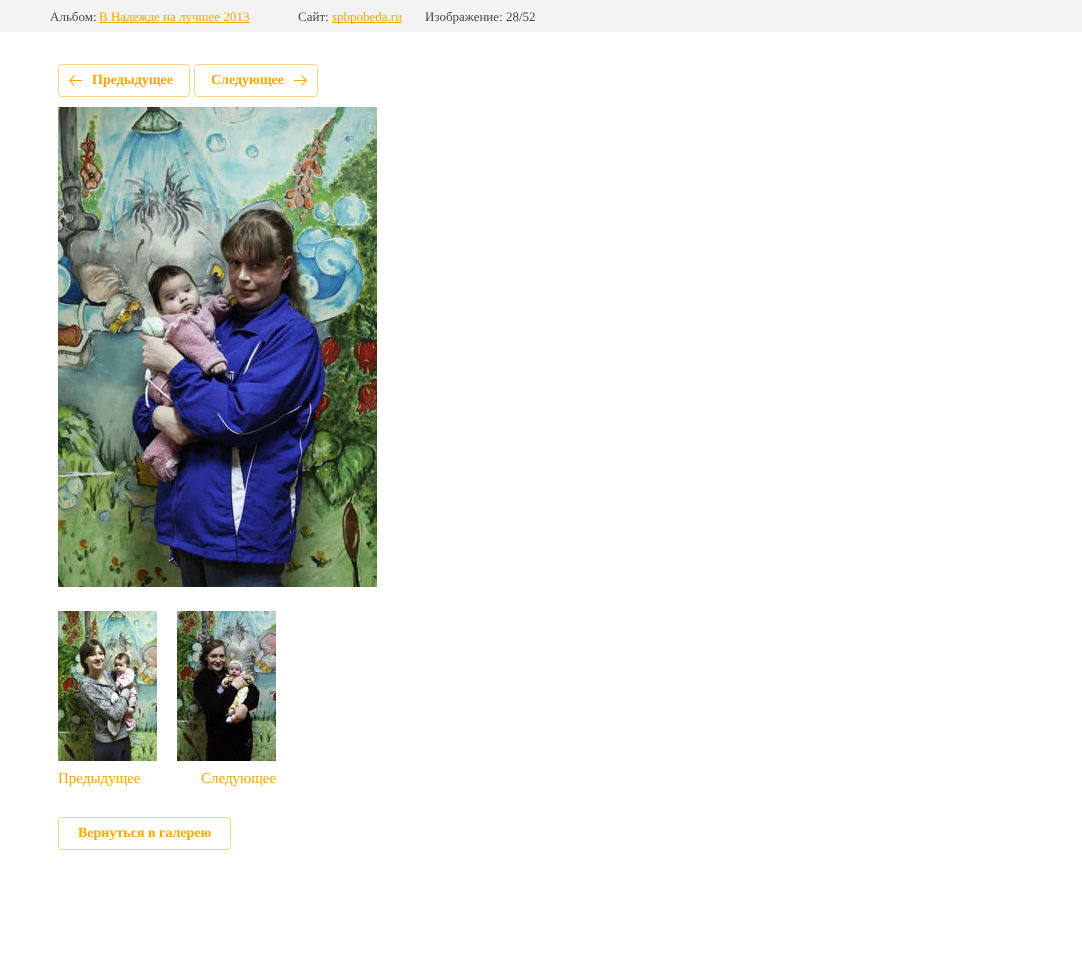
<svg xmlns="http://www.w3.org/2000/svg" width="1082" height="971">
<style>
.a{font:13px Liberation Serif;fill:#484848}
.b{font:13px Liberation Serif;fill:#ffa601}
.c{font:bold 14px Liberation Serif;fill:#ffa601}
.d{font:15px Liberation Serif;fill:#ffa601}
</style>
<rect width="100%" height="100%" fill="#fff"/>
<path fill="#f3f3f3" d="M0 0h1082v32H0z"/>
<path fill="#ffa601" d="M99 22h151v1H99z"/>
<path fill="#ffa601" d="M332 22h70v1H332z"/>
<rect fill="none" stroke="#ffd380" x="58.5" y="64.5" width="131" height="32" rx="3.5"/>
<image href="1.png" x="69" y="75" width="13" height="11"/>
<rect fill="none" stroke="#ffd380" x="194.5" y="64.5" width="123" height="32" rx="3.5"/>
<image href="2.png" x="294" y="75" width="13" height="11"/>
<image href="3.png" x="58" y="107" width="319" height="480"/>
<image href="4.png" x="58" y="611" width="99" height="150"/>
<image href="5.png" x="177" y="611" width="99" height="150"/>
<rect fill="none" stroke="#ffd380" x="58.5" y="817.5" width="172" height="32" rx="3.5"/>
<text class="a" x="50" y="21">Альбом:</text>
<text class="b" x="99" y="21">В Надежде на лучшее 2013</text>
<text class="a" x="298" y="21">Сайт:</text>
<text class="b" x="332" y="21">spbpobeda.ru</text>
<text class="a" x="425" y="21">Изображение: 28/52</text>
<text class="c" x="92" y="84">Предыдущее</text>
<text class="c" x="211" y="84">Следующее</text>
<text class="d" x="58" y="783">Предыдущее</text>
<text class="d" x="201" y="783">Следующее</text>
<text class="c" x="78" y="837">Вернуться в галерею</text>
</svg>
